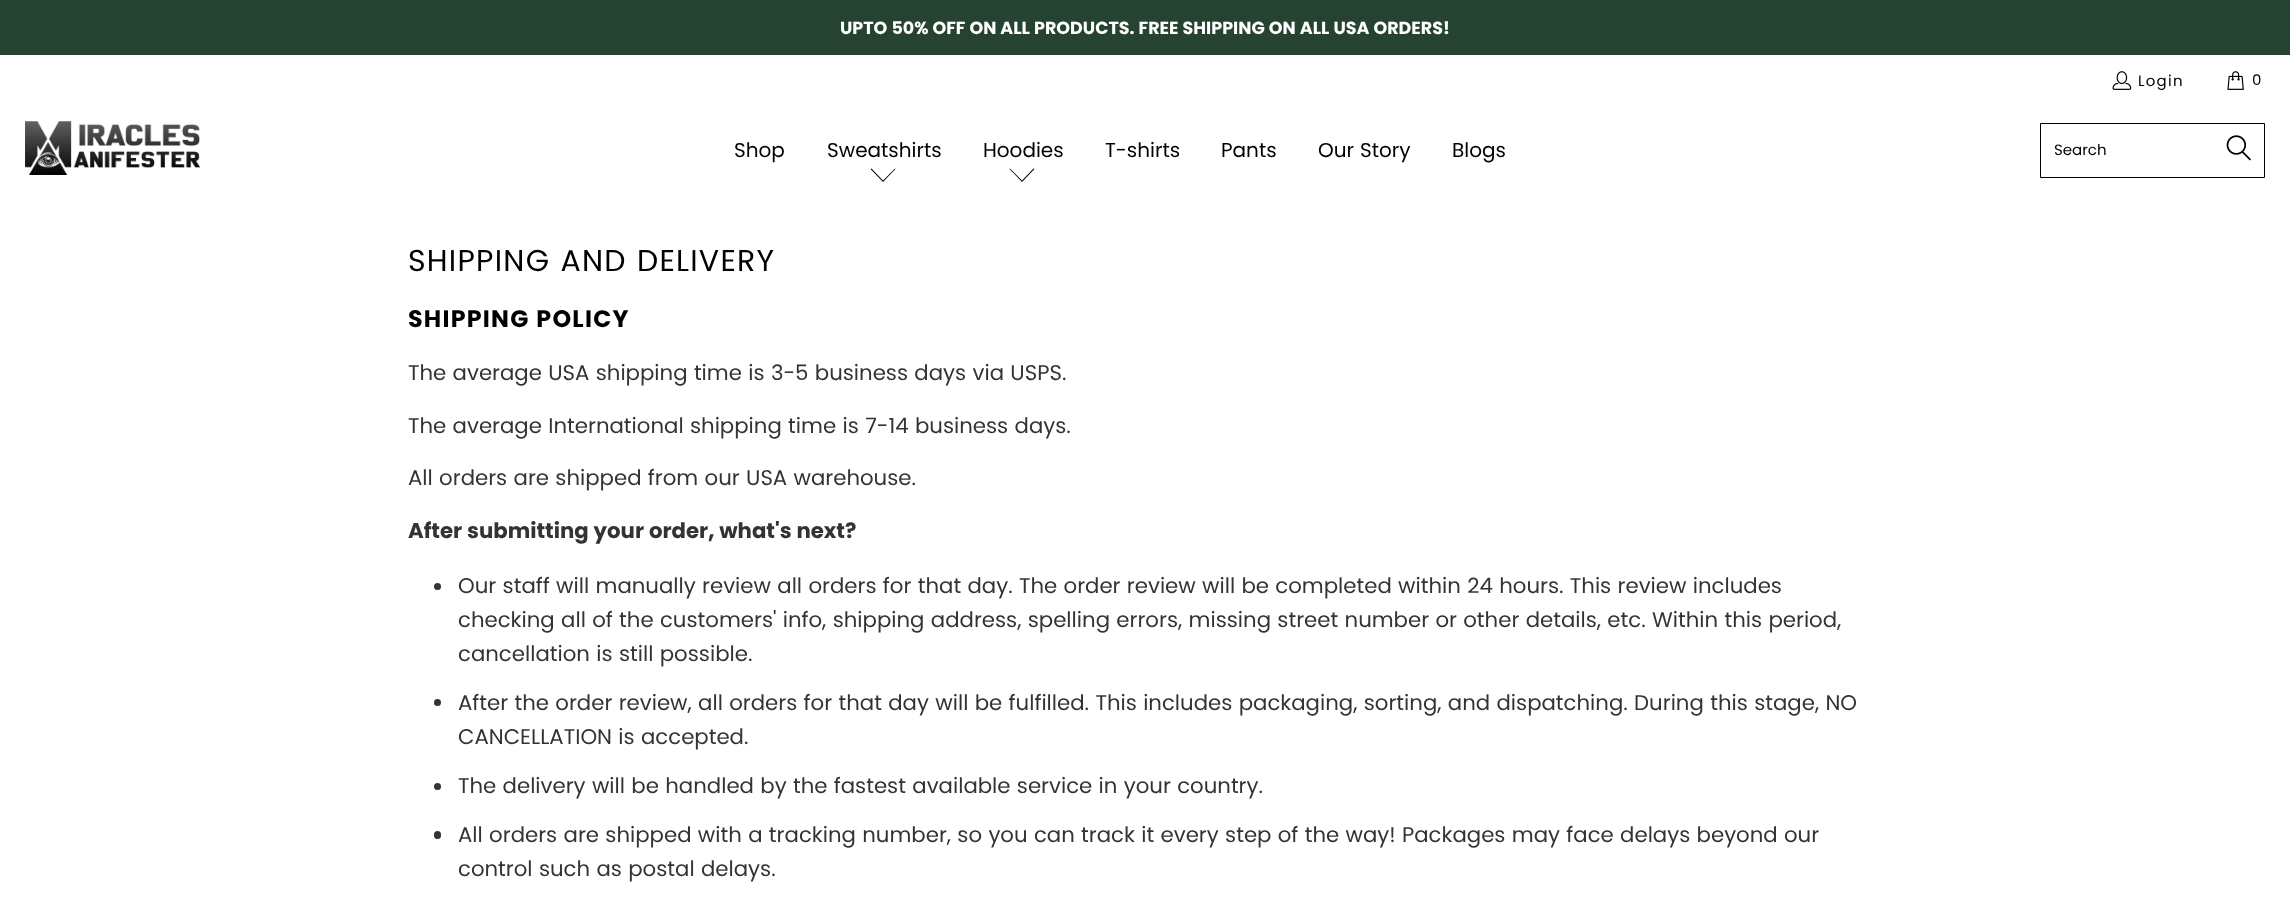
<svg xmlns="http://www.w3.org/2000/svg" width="2290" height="897">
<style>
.a{font:bold 17.5px Poppins;fill:#fff}
.b{font:15px Poppins;letter-spacing:1.25px;fill:#000}
.c{font:20px Poppins;fill:#000}
.d{font:15px Poppins;fill:#000}
.e{font:30px Poppins;letter-spacing:1.25px;fill:#000}
.f{font:bold 23.75px Poppins;letter-spacing:1.25px;fill:#000}
.g{font:21.25px Poppins;fill:#333}
.h{font:bold 21.25px Poppins;fill:#333}
</style>
<rect width="100%" height="100%" fill="#fff"/>
<path fill="#264230" d="M0 0h2290v55H0z"/>
<image href="1.png" x="2112" y="71" width="20" height="19"/>
<image href="2.png" x="2227" y="71" width="17" height="19"/>
<image href="3.png" x="25" y="121" width="175" height="54"/>
<path fill="#000" d="M883 182l-12.5-13l1-.5l11.5 12l12-12l.5 .5z"/>
<path fill="#000" d="M1022 182l-12.5-13l.5-.5l12 12l11.5-12l1 .5z"/>
<path fill="none" stroke="#000" d="M2040.5 123.5h224v54H2040.5z"/>
<image href="4.png" x="2226" y="135" width="25" height="26"/>
<circle fill="#333" cx="437.5" cy="586.5" r="3.5"/>
<circle fill="#333" cx="437.5" cy="702.5" r="3.5"/>
<circle fill="#333" cx="437.5" cy="786.5" r="3.5"/>
<rect fill="#333" x="434" y="831" width="7" height="8" rx="3.5"/>
<text class="a" x="840" y="34">UPTO 50% OFF ON ALL PRODUCTS. FREE SHIPPING ON ALL USA ORDERS!</text>
<text class="b" x="2138" y="86">Login</text>
<text class="b" x="2252" y="85">0</text>
<text class="c" x="734" y="157">Shop</text>
<text class="c" x="827" y="157">Sweatshirts</text>
<text class="c" x="983" y="157">Hoodies</text>
<text class="c" x="1105" y="157">T-shirts</text>
<text class="c" x="1221" y="157">Pants</text>
<text class="c" x="1318" y="157">Our Story</text>
<text class="c" x="1452" y="157">Blogs</text>
<text class="d" x="2054" y="155">Search</text>
<text class="e" x="408" y="271">SHIPPING AND DELIVERY</text>
<text class="f" x="408" y="327">SHIPPING POLICY</text>
<text class="g" x="408" y="380">The average USA shipping time is 3-5 business days via USPS.</text>
<text class="g" x="408" y="433">The average International shipping time is 7-14 business days.</text>
<text class="g" x="408" y="485">All orders are shipped from our USA warehouse.</text>
<text class="h" x="408" y="538">After submitting your order, what's next?</text>
<text class="g" x="458" y="593">Our staff will manually review all orders for that day. The order review will be completed within 24 hours. This review includes</text>
<text class="g" x="458" y="627">checking all of the customers' info, shipping address, spelling errors, missing street number or other details, etc. Within this period,</text>
<text class="g" x="458" y="661">cancellation is still possible.</text>
<text class="g" x="458" y="710">After the order review, all orders for that day will be fulfilled. This includes packaging, sorting, and dispatching. During this stage, NO</text>
<text class="g" x="458" y="744">CANCELLATION is accepted.</text>
<text class="g" x="458" y="793">The delivery will be handled by the fastest available service in your country.</text>
<text class="g" x="458" y="842">All orders are shipped with a tracking number, so you can track it every step of the way! Packages may face delays beyond our</text>
<text class="g" x="458" y="876">control such as postal delays.</text>
</svg>
